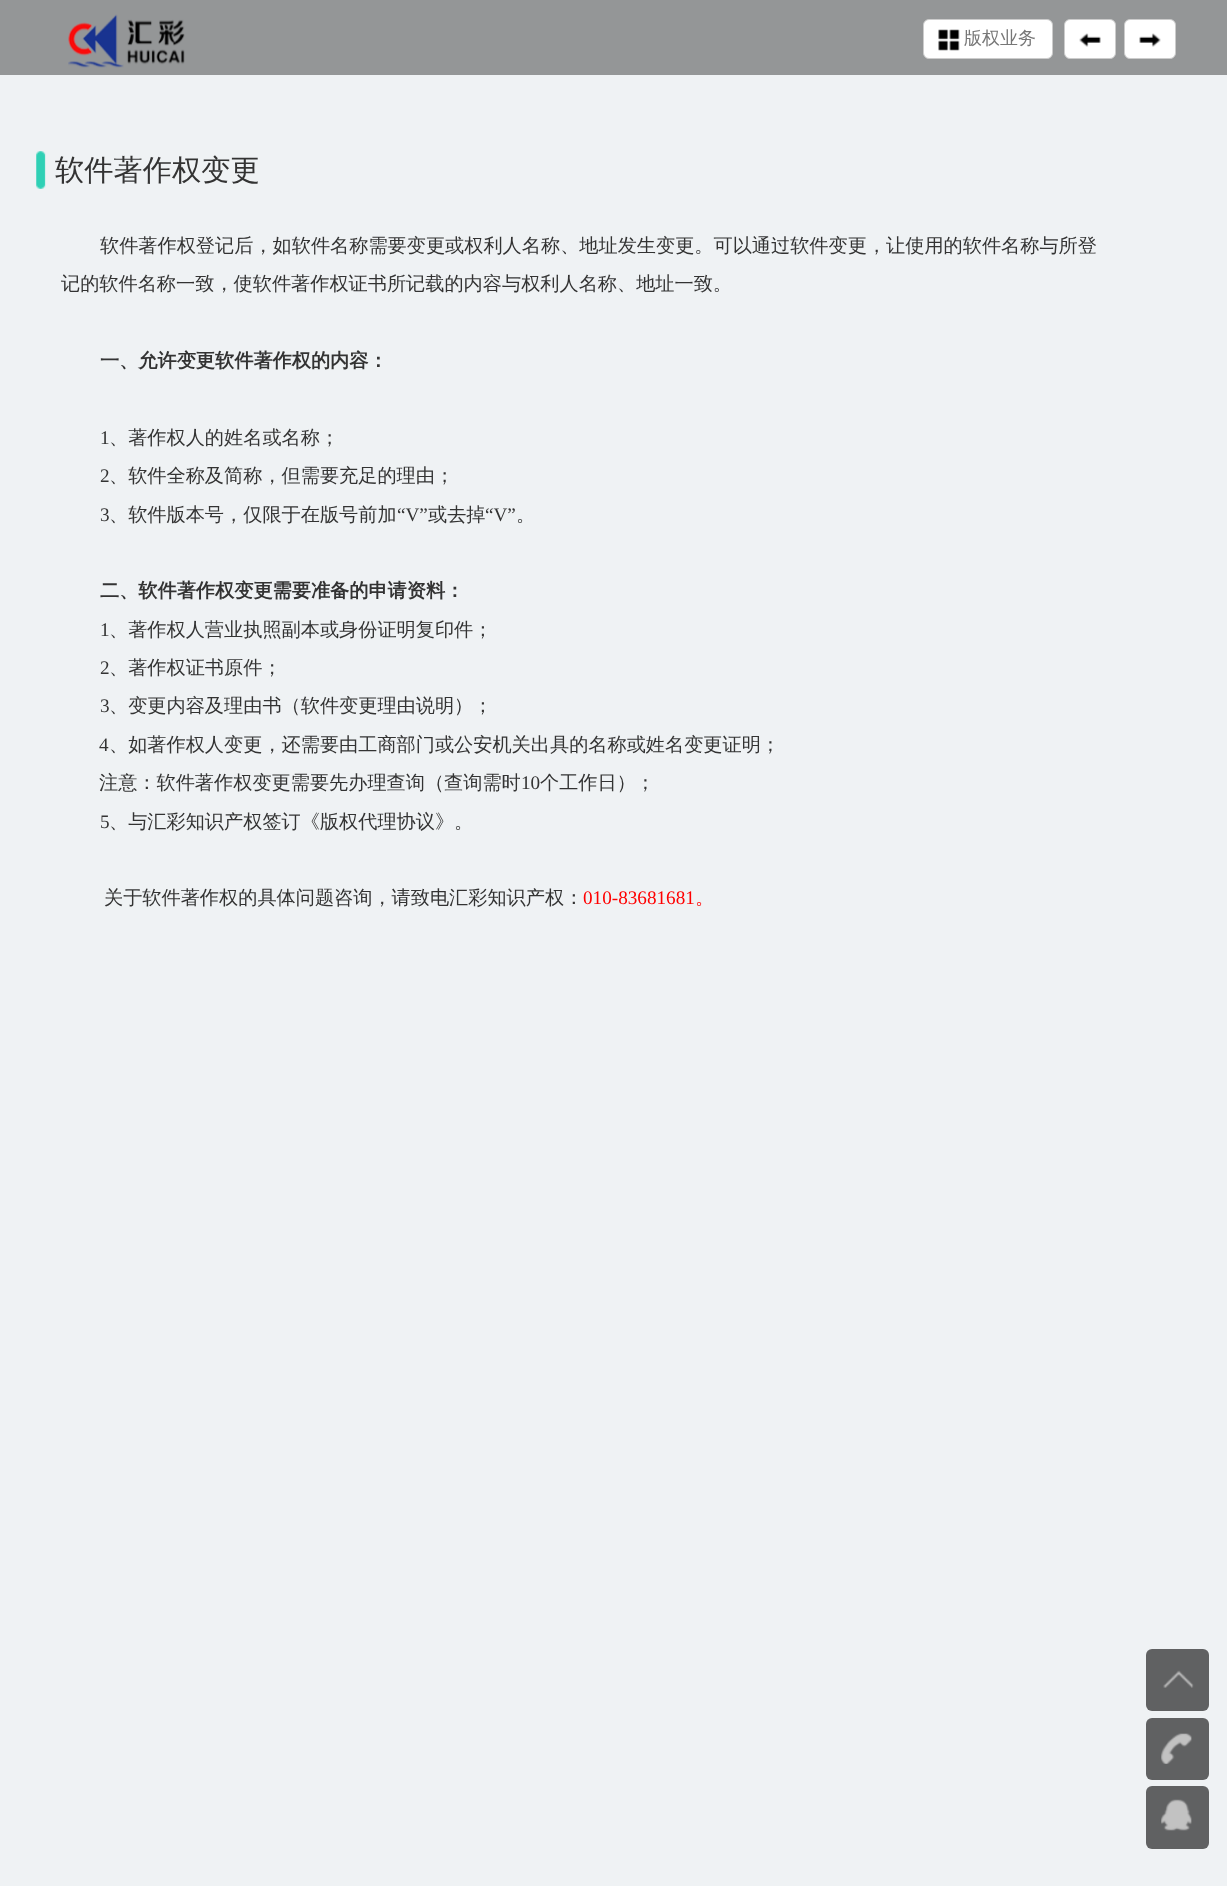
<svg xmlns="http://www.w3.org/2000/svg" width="1227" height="1886">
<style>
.a{font:500 18px WenQuanYi Zen Hei;fill:#777}
.b{font:500 29.25px WenQuanYi Zen Hei;fill:#333}
.c{font:500 19.18px WenQuanYi Zen Hei;fill:#333}
.d{font:bold 19.18px WenQuanYi Zen Hei;fill:#333}
.e{font:19.18px Liberation Serif;fill:#333}
.f{font:19.18px Liberation Serif;fill:#f00}
.g{font:500 19.18px WenQuanYi Zen Hei;fill:#f00}
</style>
<rect width="100%" height="100%" fill="#eff2f4"/>
<path fill="#949697" d="M0 0h1227v75H0z"/>
<image href="1.png" x="68" y="14" width="117" height="54"/>
<rect fill="#fff" stroke="#ccc" x="923.5" y="19.5" width="129" height="39" rx="5.5"/>
<image href="2.png" x="938" y="29" width="22" height="22"/>
<rect fill="#fff" stroke="#ccc" x="1064.5" y="19.5" width="51" height="39" rx="5.5"/>
<image href="3.png" x="1079" y="33" width="22" height="14"/>
<rect fill="#fff" stroke="#ccc" x="1124.5" y="19.5" width="51" height="39" rx="5.5"/>
<image href="4.png" x="1139" y="33" width="22" height="14"/>
<image href="5.png" x="36" y="151" width="10" height="38"/>
<rect fill="#606162" x="1146" y="1649" width="63" height="62" rx="6"/>
<image href="6.png" x="1163" y="1670" width="31" height="18"/>
<rect fill="#606162" x="1146" y="1718" width="63" height="62" rx="6"/>
<image href="7.png" x="1161" y="1733" width="31" height="31"/>
<rect fill="#606162" x="1146" y="1786" width="63" height="63" rx="6"/>
<image href="8.png" x="1161" y="1799" width="31" height="32"/>
<text class="a" x="964" y="44">版权业务</text>
<text class="b" x="55" y="180">软件著作权变更</text>
<text class="c" x="100" y="252">软件著作权登记后，如软件名称需要变更或权利人名称、地址发生变更。可以通过软件变更，让使用的软件名称与所登</text>
<text class="c" x="61" y="290">记的软件名称一致，使软件著作权证书所记载的内容与权利人名称、地址一致。</text>
<text class="d" x="100" y="367">一、允许变更软件著作权的内容：</text>
<text class="e" x="100" y="444">1</text>
<text class="c" x="109" y="444">、著作权人的姓名或名称；</text>
<text class="e" x="100" y="482">2</text>
<text class="c" x="109" y="482">、软件全称及简称，但需要充足的理由；</text>
<text class="e" x="100" y="521">3</text>
<text class="c" x="109" y="521">、软件版本号，仅限于在版号前加</text>
<text class="e" x="397" y="521">“V”</text>
<text class="c" x="428" y="521">或去掉</text>
<text class="e" x="485" y="521">“V”</text>
<text class="c" x="516" y="521">。</text>
<text class="d" x="100" y="597">二、软件著作权变更需要准备的申请资料：</text>
<text class="e" x="100" y="636">1</text>
<text class="c" x="109" y="636">、著作权人营业执照副本或身份证明复印件；</text>
<text class="e" x="100" y="674">2</text>
<text class="c" x="109" y="674">、著作权证书原件；</text>
<text class="e" x="100" y="712">3</text>
<text class="c" x="109" y="712">、变更内容及理由书（软件变更理由说明）；</text>
<text class="e" x="99" y="751">4</text>
<text class="c" x="109" y="751">、如著作权人变更，还需要由工商部门或公安机关出具的名称或姓名变更证明；</text>
<text class="c" x="99" y="789">注意：软件著作权变更需要先办理查询（查询需时</text>
<text class="e" x="521" y="789">10</text>
<text class="c" x="540" y="789">个工作日）；</text>
<text class="e" x="100" y="828">5</text>
<text class="c" x="109" y="828">、与汇彩知识产权签订《版权代理协议》。</text>
<text class="c" x="104" y="904">关于软件著作权的具体问题咨询，请致电汇彩知识产权：</text>
<text class="f" x="583" y="904">010-83681681</text>
<text class="g" x="695" y="904">。</text>
</svg>
